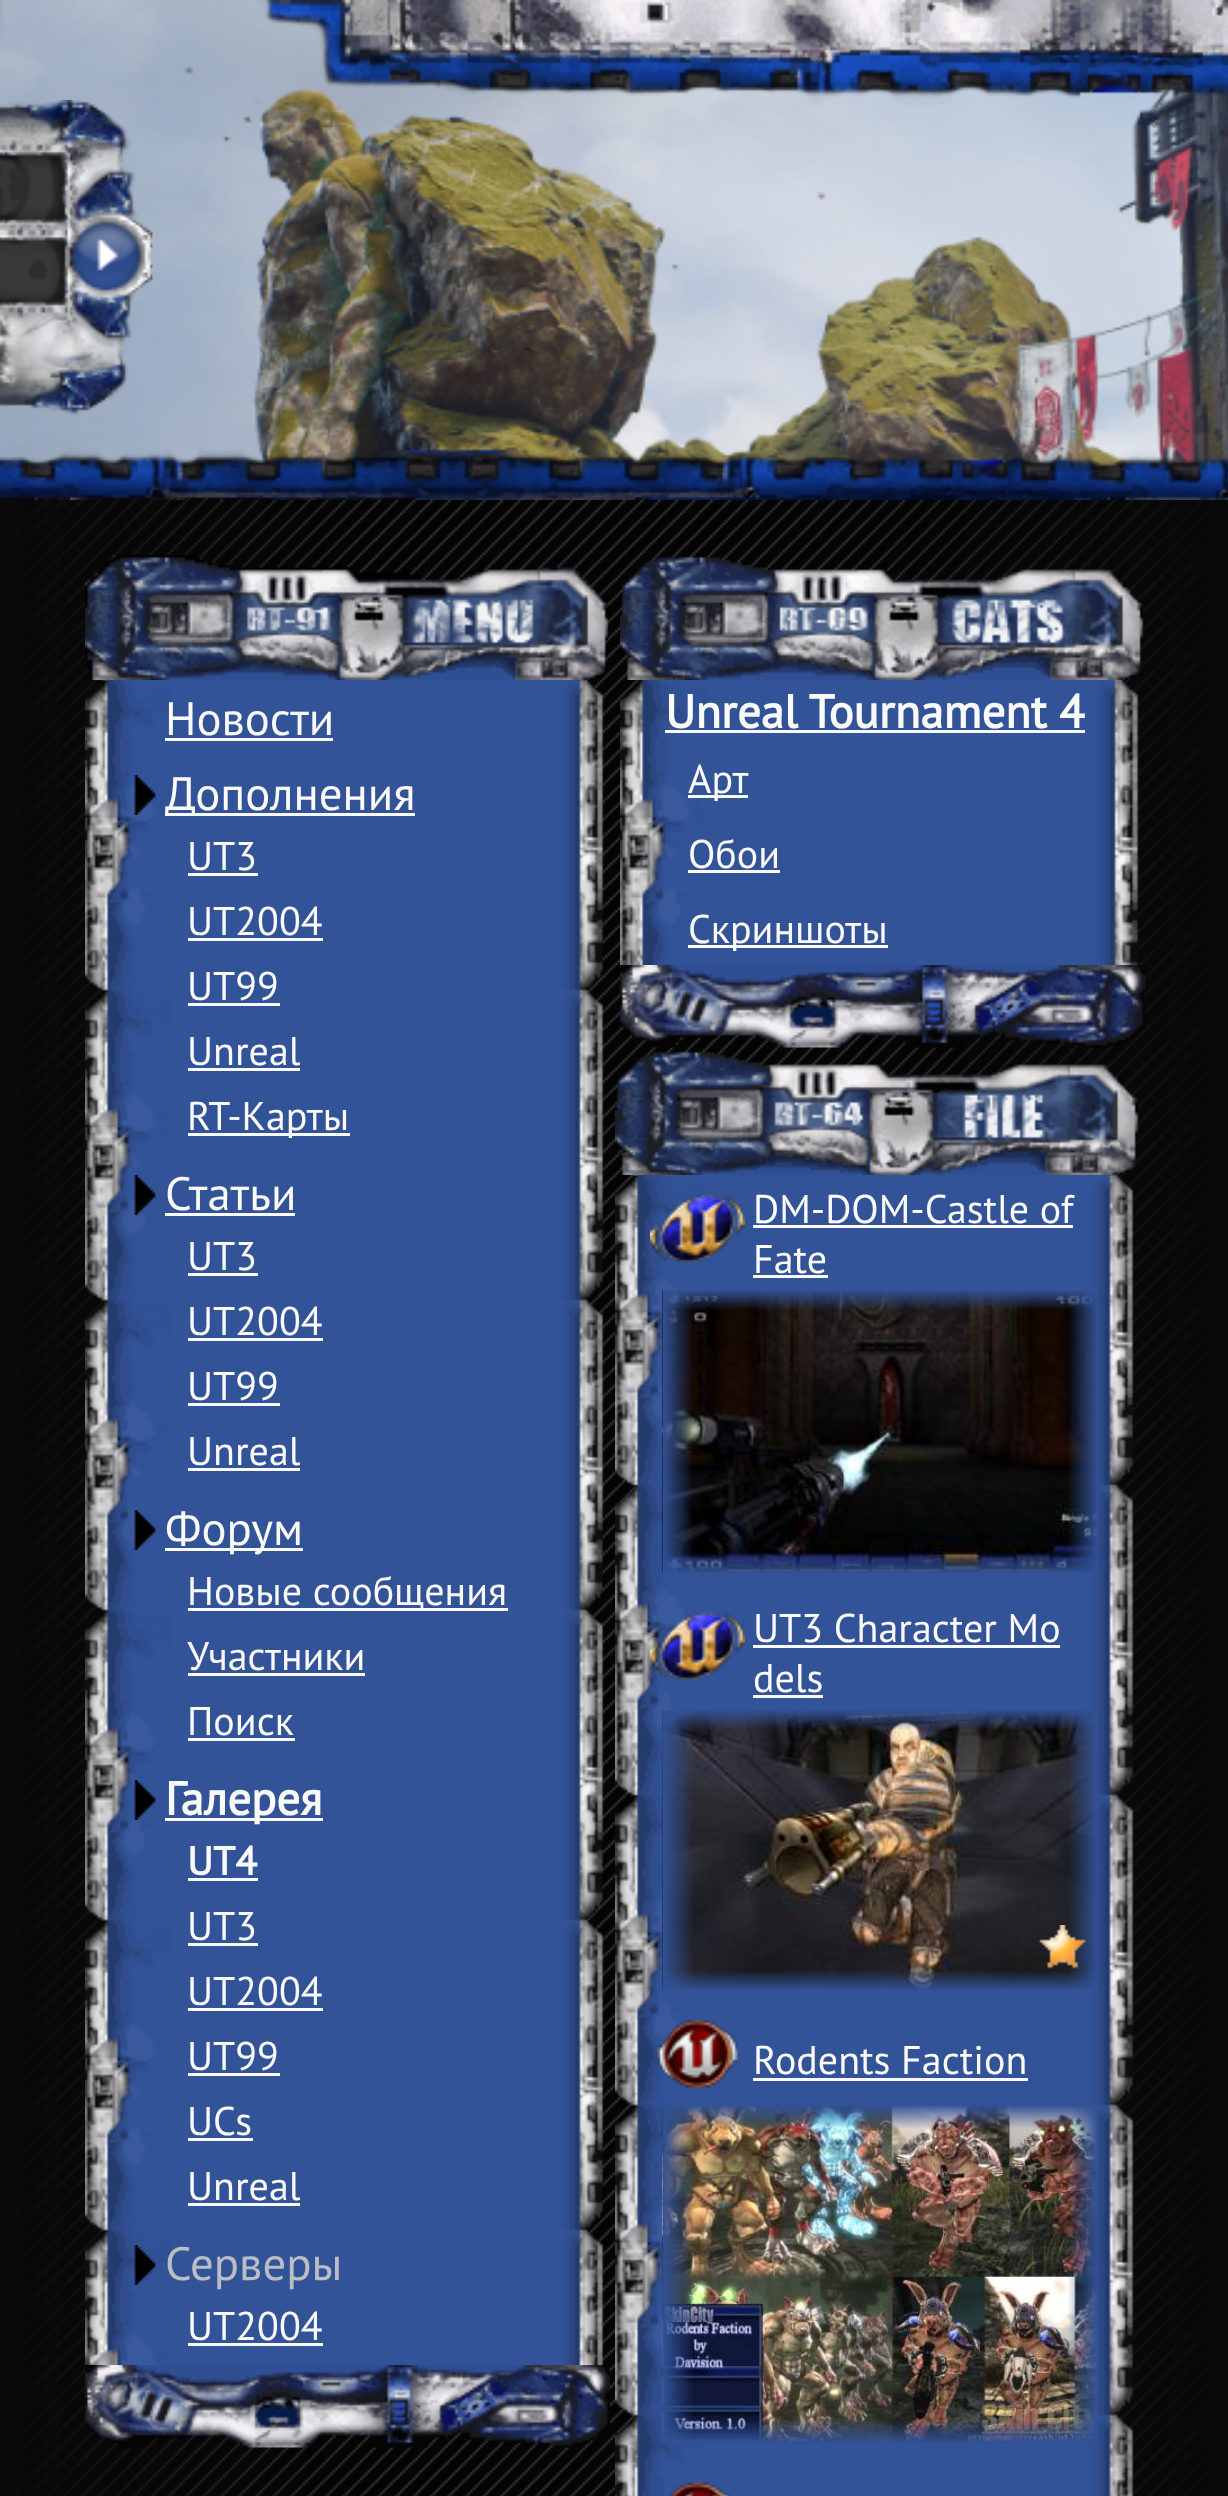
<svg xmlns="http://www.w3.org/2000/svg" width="1228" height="2496">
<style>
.a{font:46.75px PT Sans;fill:#fafafa}
.b{font:40px PT Sans;fill:#fafafa}
.c{font:bold 46.75px PT Sans;fill:#fafafa}
.d{font:bold 40px PT Sans;fill:#fafafa}
.e{font:46.75px PT Sans;fill:#babec2}
</style>
<defs>
<linearGradient id="g1" gradientUnits="userSpaceOnUse" x1="880" y1="1290" x2="880" y2="1573"><stop offset="0" stop-color="#315195"/><stop offset="0.07" stop-color="#315195" stop-opacity="0"/><stop offset="0.93" stop-color="#315195" stop-opacity="0"/><stop offset="1" stop-color="#315195"/></linearGradient>
<linearGradient id="g2" gradientUnits="userSpaceOnUse" x1="663" y1="1431" x2="1098" y2="1431"><stop offset="0" stop-color="#315195"/><stop offset="0.07" stop-color="#315195" stop-opacity="0"/><stop offset="0.93" stop-color="#315195" stop-opacity="0"/><stop offset="1" stop-color="#315195"/></linearGradient>
<linearGradient id="g3" gradientUnits="userSpaceOnUse" x1="880" y1="1710" x2="880" y2="1990"><stop offset="0" stop-color="#315195"/><stop offset="0.07" stop-color="#315195" stop-opacity="0"/><stop offset="0.93" stop-color="#315195" stop-opacity="0"/><stop offset="1" stop-color="#315195"/></linearGradient>
<linearGradient id="g4" gradientUnits="userSpaceOnUse" x1="663" y1="1850" x2="1098" y2="1850"><stop offset="0" stop-color="#315195"/><stop offset="0.07" stop-color="#315195" stop-opacity="0"/><stop offset="0.93" stop-color="#315195" stop-opacity="0"/><stop offset="1" stop-color="#315195"/></linearGradient>
<linearGradient id="g5" gradientUnits="userSpaceOnUse" x1="880" y1="2105" x2="880" y2="2443"><stop offset="0" stop-color="#315195"/><stop offset="0.07" stop-color="#315195" stop-opacity="0"/><stop offset="0.93" stop-color="#315195" stop-opacity="0"/><stop offset="1" stop-color="#315195"/></linearGradient>
<linearGradient id="g6" gradientUnits="userSpaceOnUse" x1="663" y1="2274" x2="1098" y2="2274"><stop offset="0" stop-color="#315195"/><stop offset="0.07" stop-color="#315195" stop-opacity="0"/><stop offset="0.93" stop-color="#315195" stop-opacity="0"/><stop offset="1" stop-color="#315195"/></linearGradient>
</defs>
<rect width="100%" height="100%" fill="#fff"/>
<image href="1.png" x="0" y="71" width="1228" height="2425"/>
<image href="2.png" x="0" y="0" width="1228" height="469"/>
<image href="3.png" x="0" y="0" width="1228" height="500"/>
<image href="4.png" x="0" y="100" width="153" height="316"/>
<image href="5.png" x="75" y="222" width="63" height="49"/>
<image href="6.png" x="85" y="680" width="519" height="1685"/>
<image href="7.png" x="85" y="554" width="524" height="126"/>
<path fill="#fafafa" d="M165 738h168v3H165z"/>
<image href="8.png" x="134" y="775" width="22" height="40"/>
<path fill="#fafafa" d="M165 813h250v3H165z"/>
<path fill="#fafafa" d="M188 873h70v3H188z"/>
<path fill="#fafafa" d="M188 938h135v3H188z"/>
<path fill="#fafafa" d="M188 1003h92v3H188z"/>
<path fill="#fafafa" d="M188 1068h112v3H188z"/>
<path fill="#fafafa" d="M188 1133h162v3H188z"/>
<image href="9.png" x="134" y="1175" width="22" height="40"/>
<path fill="#fafafa" d="M165 1213h130v3H165z"/>
<path fill="#fafafa" d="M188 1273h70v3H188z"/>
<path fill="#fafafa" d="M188 1338h135v3H188z"/>
<path fill="#fafafa" d="M188 1403h92v3H188z"/>
<path fill="#fafafa" d="M188 1468h112v3H188z"/>
<image href="10.png" x="134" y="1510" width="22" height="40"/>
<path fill="#fafafa" d="M165 1548h138v3H165z"/>
<path fill="#fafafa" d="M188 1608h320v3H188z"/>
<path fill="#fafafa" d="M188 1673h177v3H188z"/>
<path fill="#fafafa" d="M188 1738h107v3H188z"/>
<image href="11.png" x="134" y="1780" width="22" height="40"/>
<path fill="#fafafa" d="M165 1818h158v3H165z"/>
<path fill="#fafafa" d="M188 1878h70v3H188z"/>
<path fill="#fafafa" d="M188 1943h70v3H188z"/>
<path fill="#fafafa" d="M188 2008h135v3H188z"/>
<path fill="#fafafa" d="M188 2073h92v3H188z"/>
<path fill="#fafafa" d="M188 2138h65v3H188z"/>
<path fill="#fafafa" d="M188 2203h112v3H188z"/>
<image href="12.png" x="134" y="2245" width="22" height="40"/>
<path fill="#fafafa" d="M188 2343h135v3H188z"/>
<image href="13.png" x="85" y="2365" width="525" height="83"/>
<image href="14.png" x="620" y="680" width="519" height="285"/>
<image href="15.png" x="620" y="556" width="524" height="124"/>
<path fill="#fafafa" d="M665 730h420v3H665z"/>
<path fill="#fafafa" d="M688 795h60v3H688z"/>
<path fill="#fafafa" d="M688 870h92v3H688z"/>
<path fill="#fafafa" d="M688 945h200v3H688z"/>
<image href="16.png" x="620" y="965" width="525" height="83"/>
<image href="17.png" x="615" y="1175" width="519" height="1321"/>
<image href="18.png" x="615" y="1051" width="524" height="124"/>
<image href="19.png" x="650" y="1195" width="95" height="68"/>
<path fill="#fafafa" d="M753 1225h320v3H753z"/>
<path fill="#fafafa" d="M753 1275h75v3H753z"/>
<image href="20.png" x="662" y="1290" width="436" height="283"/>
<path fill="url(#g1)" d="M663 1290h435v283H663z"/>
<path fill="url(#g2)" d="M663 1290h435v283H663z"/>
<image href="21.png" x="650" y="1612" width="95" height="68"/>
<path fill="#fafafa" d="M753 1645h307v3H753z"/>
<path fill="#fafafa" d="M753 1695h70v3H753z"/>
<image href="22.png" x="662" y="1710" width="436" height="280"/>
<path fill="url(#g3)" d="M663 1710h435v280H663z"/>
<path fill="url(#g4)" d="M663 1710h435v280H663z"/>
<image href="23.png" x="1039" y="1925" width="47" height="44"/>
<image href="24.png" x="657" y="2020" width="81" height="68"/>
<path fill="#fafafa" d="M753 2078h275v3H753z"/>
<image href="25.png" x="662" y="2105" width="436" height="338"/>
<path fill="url(#g5)" d="M663 2105h435v338H663z"/>
<path fill="url(#g6)" d="M663 2105h435v337H663z"/>
<image href="26.png" x="669" y="2482" width="62" height="14"/>
<text class="a" x="165" y="735">Новости</text>
<text class="a" x="165" y="810">Дополнения</text>
<text class="b" x="187" y="870">UT3</text>
<text class="b" x="187" y="935">UT2004</text>
<text class="b" x="187" y="1000">UT99</text>
<text class="b" x="187" y="1065">Unreal</text>
<text class="b" x="187" y="1130">RT-Карты</text>
<text class="a" x="165" y="1210">Статьи</text>
<text class="b" x="187" y="1270">UT3</text>
<text class="b" x="187" y="1335">UT2004</text>
<text class="b" x="187" y="1400">UT99</text>
<text class="b" x="187" y="1465">Unreal</text>
<text class="a" x="165" y="1545">Форум</text>
<text class="b" x="187" y="1605">Новые сообщения</text>
<text class="b" x="187" y="1670">Участники</text>
<text class="b" x="187" y="1735">Поиск</text>
<text class="c" x="165" y="1815">Галерея</text>
<text class="d" x="187" y="1875">UT4</text>
<text class="b" x="187" y="1940">UT3</text>
<text class="b" x="187" y="2005">UT2004</text>
<text class="b" x="187" y="2070">UT99</text>
<text class="b" x="187" y="2135">UCs</text>
<text class="b" x="187" y="2200">Unreal</text>
<text class="e" x="165" y="2280">Серверы</text>
<text class="b" x="187" y="2340">UT2004</text>
<text class="c" x="665" y="728">Unreal Tournament 4</text>
<text class="b" x="688" y="793">Арт</text>
<text class="b" x="688" y="868">Обои</text>
<text class="b" x="688" y="943">Скриншоты</text>
<text class="b" x="753" y="1223">DM-DOM-Castle of</text>
<text class="b" x="753" y="1273">Fate</text>
<text class="b" x="753" y="1642">UT3 Character Mo</text>
<text class="b" x="753" y="1692">dels</text>
<text class="b" x="753" y="2074">Rodents Faction</text>
</svg>
